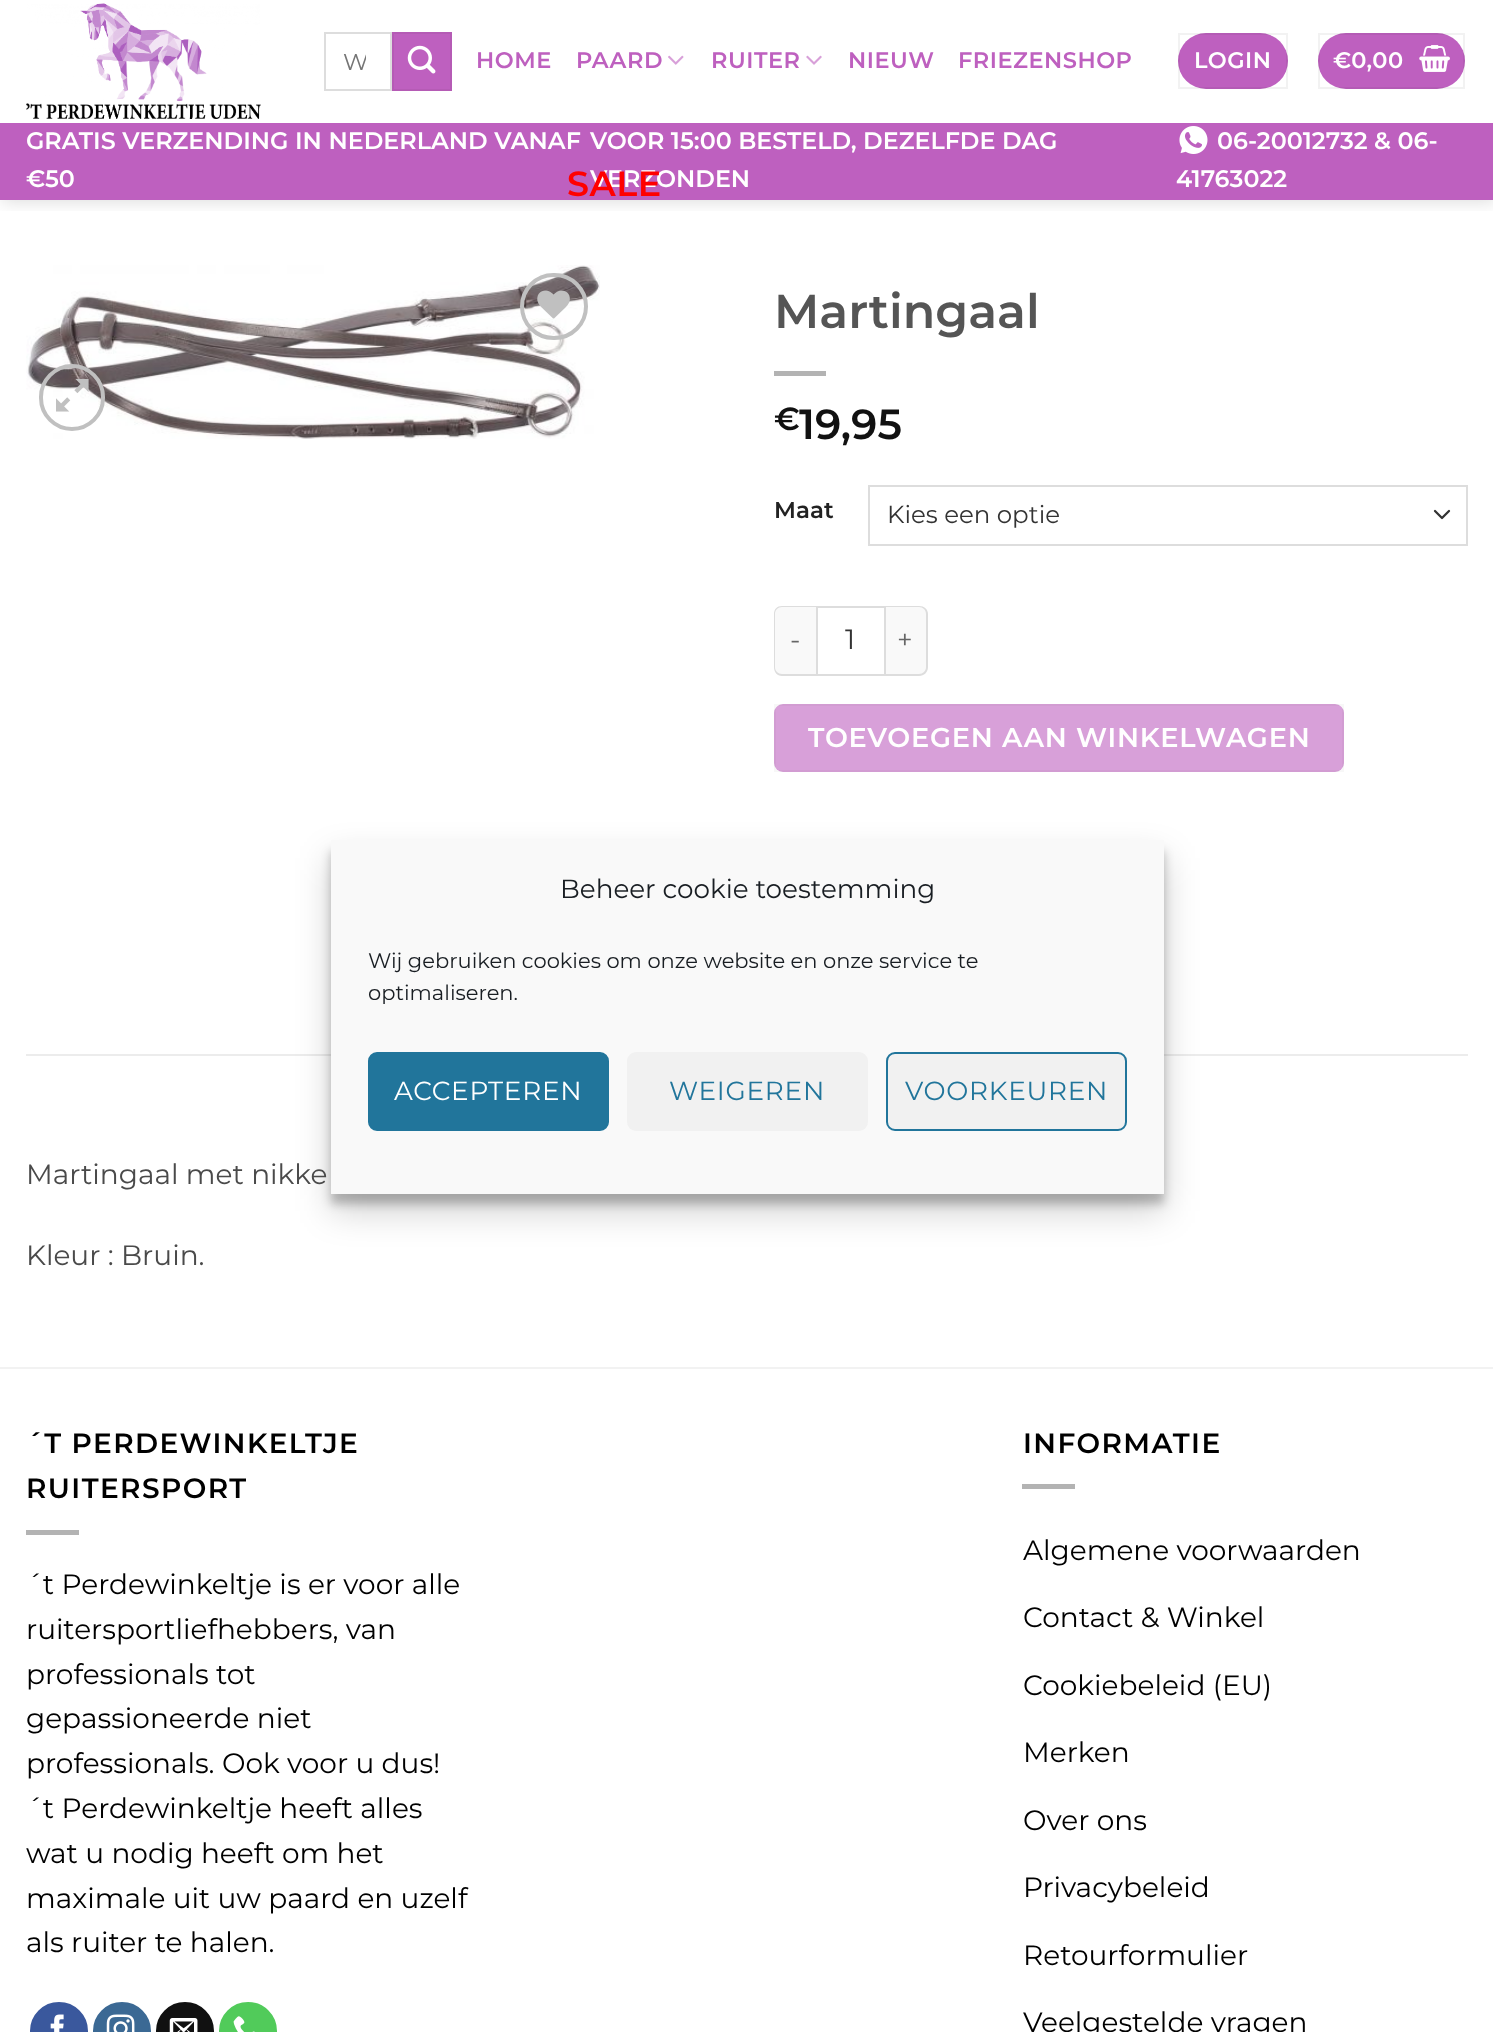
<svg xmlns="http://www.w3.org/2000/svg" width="1493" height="2032">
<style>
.a{font:23px Montserrat;fill:#757575}
.b{font:600 22.5px Montserrat;letter-spacing:0.5px;fill:#be60bf}
.c{font:600 22.5px Montserrat;letter-spacing:0.5px;fill:#fff}
.d{font:600 23.8px Montserrat;fill:#fff}
.e{font:600 35px Montserrat;letter-spacing:0.5px;fill:#f00}
.f{font:600 47.5px Montserrat;fill:#555}
.g{font:600 32px Montserrat;fill:#111}
.h{font:600 42px Montserrat;fill:#111}
.i{font:600 23px Montserrat;fill:#222}
.j{font:24.5px Montserrat;fill:#333}
.k{font:27.2px Montserrat;letter-spacing:0.8px;fill:#666}
.l{font:28px Montserrat;fill:#333}
.m{font:600 27.2px Montserrat;letter-spacing:0.8px;fill:#fff}
.n{font:28px Montserrat;fill:#4a4a4a}
.o{font:600 28px Montserrat;letter-spacing:1.4px;fill:#000}
.p{font:28px Montserrat;fill:#000}
.q{font:26.25px Montserrat;fill:#191e23}
.r{font:21px Montserrat;fill:#191e23}
.s{font:26.25px Montserrat;letter-spacing:0.75px;fill:#fff}
.t{font:26.25px Montserrat;letter-spacing:0.75px;fill:#21759b}
</style>
<defs>
<clipPath id="clip1"><path d="M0 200h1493v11H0z"/></clipPath>
<clipPath id="clip2"><path d="M343 47h23v28H343z"/></clipPath>
</defs>
<rect width="100%" height="100%" fill="#fff"/>
<g clip-path="url(#clip1)">
<path fill="#00000026" filter="blur(9px)" d="M2 2h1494v199H2z"/>
</g>
<image href="1.png" x="26" y="3" width="235" height="116"/>
<path fill="none" stroke="#ddd" stroke-width="2" d="M325 33h66v57H325z"/>
<path fill="#be60bf" stroke="#b55bb5" stroke-width="2" d="M393 33h58v57H393z"/>
<image href="2.png" x="407" y="45" width="29" height="29"/>
<image href="3.png" x="668" y="55" width="16" height="10"/>
<image href="4.png" x="806" y="55" width="16" height="10"/>
<rect fill="#be60bf" x="1178" y="33" width="110" height="56" rx="28"/>
<path fill="none" stroke="#0000000d" stroke-width="2" d="M1179 34h108v54H1179z"/>
<rect fill="#be60bf" x="1318" y="33" width="147" height="56" rx="28"/>
<path fill="none" stroke="#0000000d" stroke-width="2" d="M1319 34h145v54H1319z"/>
<image href="5.png" x="1419" y="45" width="31" height="27"/>
<path fill="#be60bf" d="M0 123h1493v77H0z"/>
<image href="6.png" x="1179" y="126" width="29" height="28"/>
<image href="7.png" x="26" y="265" width="574" height="174"/>
<rect fill="none" stroke="#c0c0c0" stroke-width="4" x="522" y="275" width="64" height="63" rx="31.5"/>
<image href="8.png" x="537" y="290" width="33" height="29"/>
<rect fill="none" stroke="#c0c0c0" stroke-width="4" x="41" y="366" width="62" height="63" rx="31"/>
<image href="9.png" x="56" y="378" width="33" height="34"/>
<path fill="#b3b3b3" d="M774 371h52v5H774z"/>
<path fill="none" stroke="#333" stroke-width="2.3" stroke-linecap="round" stroke-linejoin="round" d="M1435 511l7 7l7-7"/>
<path fill="none" stroke="#ddd" stroke-width="2" d="M869 486h598v59H869z"/>
<path fill="#f9f9f9" d="M783 606h33v70h-33c-5 0-9-4-9-9v-52c0-5 4-9 9-9z"/>
<path fill="#ddd" fill-rule="evenodd" d="M782 606h34v70h-34c-5 0-8-4-8-9v-53c0-5 3-8 8-8zm0 1h34v67h-34c-4 0-7-3-7-7v-53c0-4 3-7 7-7z"/>
<path fill="none" stroke="#ddd" stroke-width="2" d="M817 607h68v68H817z"/>
<path fill="#f9f9f9" d="M886 606h33c5 0 9 4 9 9v52c0 5-4 9-9 9h-33z"/>
<path fill="#ddd" fill-rule="evenodd" d="M886 606h33c5 0 9 3 9 8v53c0 5-4 9-9 9h-33zm0 1h33c4 0 7 3 7 7v53c0 4-3 7-7 7h-33z"/>
<rect fill="#d8a0d9" x="774" y="704" width="570" height="68" rx="9"/>
<path fill="none" stroke="#6666660d" stroke-width="2" d="M775 705h568v66H775z"/>
<path fill="#ececec" d="M26 1054h1442v2H26z"/>
<path fill="#f2f2f2" d="M0 1367h1493v2H0z"/>
<path fill="#b3b3b3" d="M26 1530h53v5H26z"/>
<rect fill="#3a589d" stroke="#3a589d" stroke-width="2" x="31" y="2003" width="56" height="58" rx="28"/>
<image href="10.png" x="50" y="2014" width="14" height="18"/>
<rect fill="#3b6994" stroke="#3b6994" stroke-width="2" x="94" y="2003" width="56" height="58" rx="28"/>
<image href="11.png" x="106" y="2014" width="29" height="18"/>
<rect fill="#111" stroke="#111" stroke-width="2" x="157" y="2003" width="56" height="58" rx="28"/>
<image href="12.png" x="169" y="2018" width="29" height="14"/>
<rect fill="#51cb5a" stroke="#51cb5a" stroke-width="2" x="220" y="2003" width="56" height="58" rx="28"/>
<image href="13.png" x="233" y="2016" width="22" height="16"/>
<path fill="#b3b3b3" d="M1022 1484h53v5H1022z"/>
<path fill="#0000003b" filter="blur(5px)" d="M331 851h833v353H331z"/>
<path fill="#00000030" filter="blur(17.5px)" d="M331 858h833v353H331z"/>
<path fill="#f9f9f9" d="M331 840h833v354H331z"/>
<rect fill="#21759b" stroke="#21759b" stroke-width="2" x="369" y="1053" width="239" height="77" rx="8"/>
<rect fill="#f1f1f1" x="627" y="1052" width="241" height="79" rx="9"/>
<rect fill="#f1f1f1" stroke="#21759b" stroke-width="2" x="887" y="1053" width="239" height="77" rx="8"/>
<g clip-path="url(#clip2)">
<text class="a" x="343" y="70">W</text>
</g>
<text class="b" x="476" y="68">HOME</text>
<text class="b" x="576" y="68">PAARD</text>
<text class="b" x="711" y="68">RUITER</text>
<text class="b" x="848" y="68">NIEUW</text>
<text class="b" x="958" y="68">FRIEZENSHOP</text>
<text class="c" x="1194" y="68">LOGIN</text>
<text class="c" x="1333" y="68">€0,00</text>
<text class="d" x="26" y="149">GRATIS VERZENDING IN NEDERLAND VANAF</text>
<text class="d" x="26" y="187">€50</text>
<text class="d" x="590" y="149">VOOR 15:00 BESTELD, DEZELFDE DAG</text>
<text class="d" x="590" y="187">VERZONDEN</text>
<text class="e" x="567" y="196">SALE</text>
<text class="d" x="1217" y="149">06-20012732 &amp; 06-</text>
<text class="d" x="1176" y="187">41763022</text>
<text class="f" x="774" y="328">Martingaal</text>
<text class="g" x="774" y="430">€</text>
<text class="h" x="799" y="439">19,95</text>
<text class="i" x="774" y="518">Maat</text>
<text class="j" x="887" y="523">Kies een optie</text>
<text class="k" x="790" y="649">-</text>
<text class="l" x="845" y="649">1</text>
<text class="k" x="897" y="649">+</text>
<text class="m" x="808" y="747">TOEVOEGEN AAN WINKELWAGEN</text>
<text class="n" x="26" y="1184">Martingaal met nikke</text>
<text class="n" x="26" y="1265">Kleur : Bruin.</text>
<text class="o" x="26" y="1453">´T PERDEWINKELTJE</text>
<text class="o" x="26" y="1498">RUITERSPORT</text>
<text class="p" x="26" y="1594">´t Perdewinkeltje is er voor alle</text>
<text class="p" x="26" y="1639">ruitersportliefhebbers, van</text>
<text class="p" x="26" y="1684">professionals tot</text>
<text class="p" x="26" y="1728">gepassioneerde niet</text>
<text class="p" x="26" y="1773">professionals. Ook voor u dus!</text>
<text class="p" x="26" y="1818">´t Perdewinkeltje heeft alles</text>
<text class="p" x="26" y="1863">wat u nodig heeft om het</text>
<text class="p" x="26" y="1908">maximale uit uw paard en uzelf</text>
<text class="p" x="26" y="1952">als ruiter te halen.</text>
<text class="o" x="1023" y="1453">INFORMATIE</text>
<text class="p" x="1023" y="1560">Algemene voorwaarden</text>
<text class="p" x="1023" y="1627">Contact &amp; Winkel</text>
<text class="p" x="1023" y="1695">Cookiebeleid (EU)</text>
<text class="p" x="1023" y="1762">Merken</text>
<text class="p" x="1023" y="1830">Over ons</text>
<text class="p" x="1023" y="1897">Privacybeleid</text>
<text class="p" x="1023" y="1965">Retourformulier</text>
<text class="p" x="1023" y="2032">Veelgestelde vragen</text>
<text class="q" x="560" y="898">Beheer cookie toestemming</text>
<text class="r" x="368" y="968">Wij gebruiken cookies om onze website en onze service te</text>
<text class="r" x="368" y="1000">optimaliseren.</text>
<text class="s" x="394" y="1100">ACCEPTEREN</text>
<text class="t" x="669" y="1100">WEIGEREN</text>
<text class="t" x="905" y="1100">VOORKEUREN</text>
</svg>
